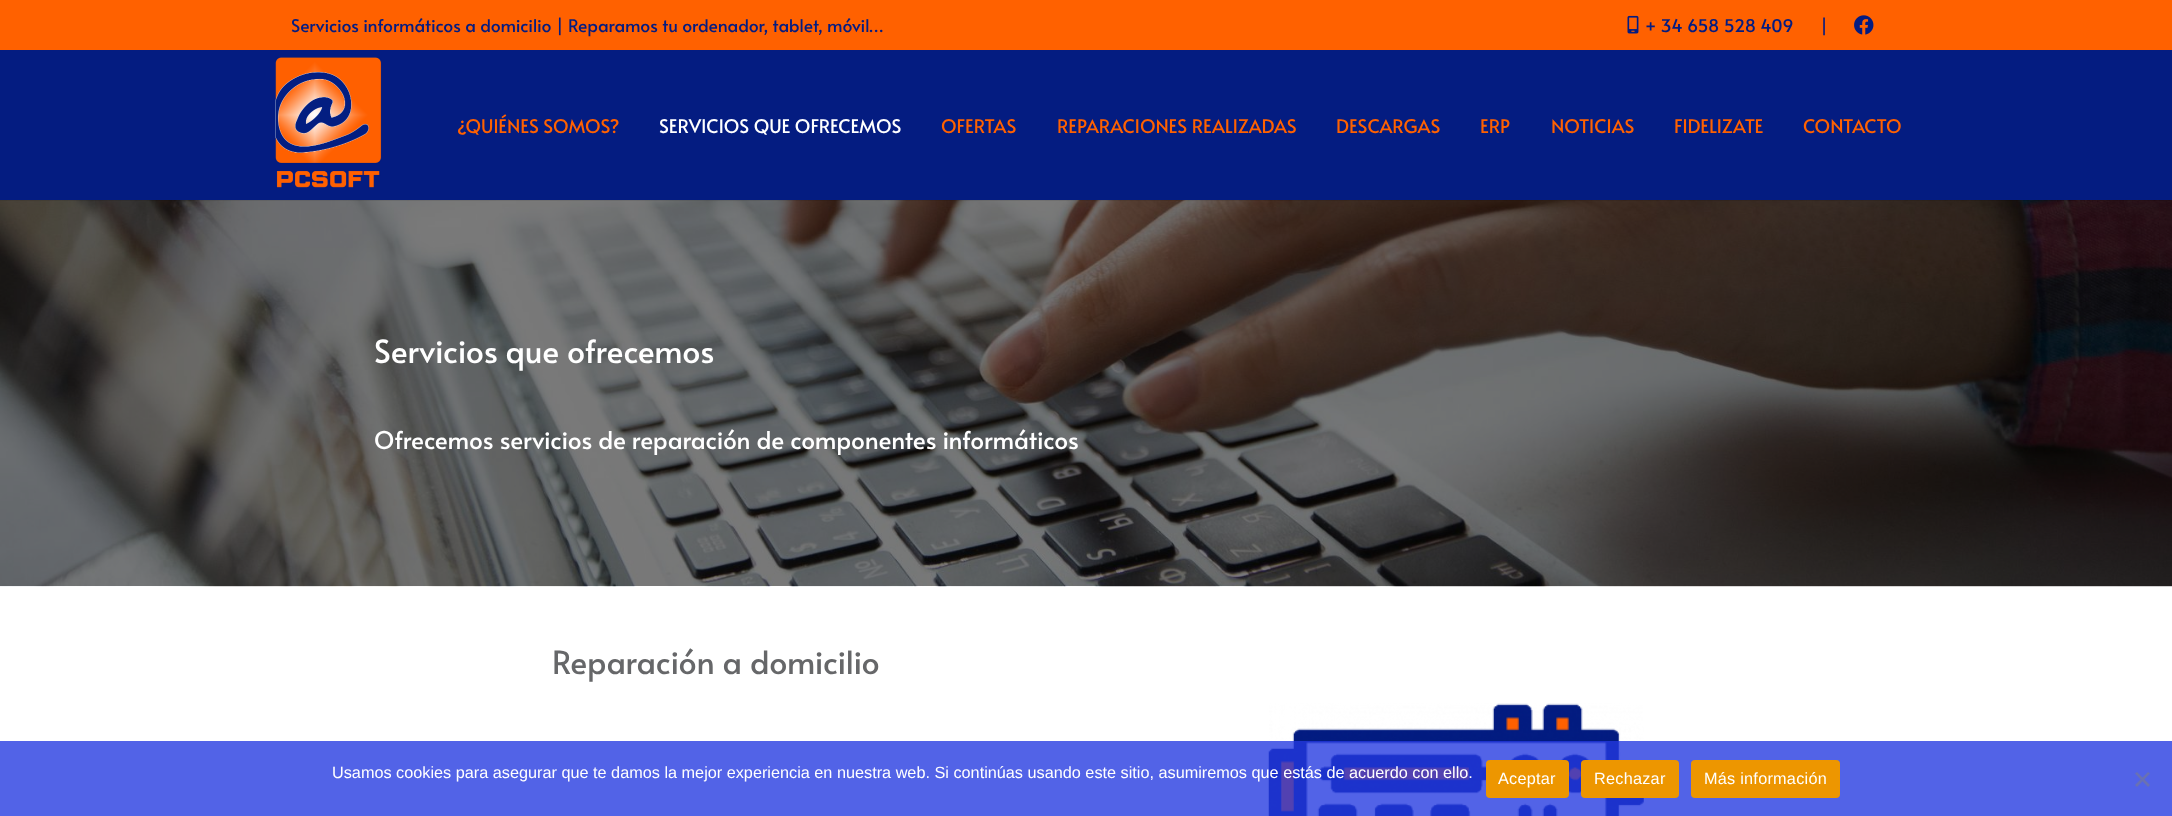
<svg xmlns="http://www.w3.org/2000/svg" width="2172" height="816">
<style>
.a{font:17.5px Alata;fill:#041c81}
.b{font:18.75px Alata;fill:#ff6100}
.c{font:18.75px Alata;fill:#fff}
.d{font:31.9px Alata;fill:#fff}
.e{font:24.4px Alata;fill:#fff}
.f{font:31.9px Alata;fill:#666769}
.g{font:16.25px Liberation Sans;fill:#fff}
.h{font:16.25px Liberation Sans;letter-spacing:0.25px;fill:#fff}
</style>
<rect width="100%" height="100%" fill="#fff"/>
<path fill="#ff6100" d="M0 0h2172v50H0z"/>
<image href="1.png" x="1627" y="15" width="12" height="19"/>
<image href="2.png" x="1854" y="15" width="20" height="20"/>
<image href="4.png" x="0" y="200" width="2172" height="387"/>
<path fill="#00000014" d="M0 200v1h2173v-150h-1v149z"/>
<path fill="#041c81" d="M0 50h2172v150H0z"/>
<image href="3.png" x="275" y="57" width="107" height="131"/>
<image href="5.png" x="1268" y="703" width="376" height="113"/>
<path fill="#2339e0c9" d="M0 741h2172v75H0z"/>
<rect fill="#ed9600" x="1486" y="760" width="83" height="38" rx="4"/>
<rect fill="#ed9600" x="1581" y="760" width="98" height="38" rx="4"/>
<rect fill="#ed9600" x="1691" y="760" width="149" height="38" rx="4"/>
<path fill="#6971b3" d="M2148 772l2 1.5l-13 13.5l-2-2z"/>
<path fill="#6971b3" d="M2135 773.5l2-1.5l13 13l-2 2z"/>
<text class="a" x="291" y="32">Servicios informáticos a domicilio | Reparamos tu ordenador, tablet, móvil…</text>
<text class="a" x="1645" y="32">+ 34 658 528 409</text>
<text class="a" x="1820" y="32">|</text>
<text class="b" x="457" y="133">¿QUIÉNES SOMOS?</text>
<text class="c" x="659" y="133">SERVICIOS QUE OFRECEMOS</text>
<text class="b" x="941" y="133">OFERTAS</text>
<text class="b" x="1057" y="133">REPARACIONES REALIZADAS</text>
<text class="b" x="1336" y="133">DESCARGAS</text>
<text class="b" x="1480" y="133">ERP</text>
<text class="b" x="1551" y="133">NOTICIAS</text>
<text class="b" x="1674" y="133">FIDELIZATE</text>
<text class="b" x="1803" y="133">CONTACTO</text>
<text class="d" x="374" y="363">Servicios que ofrecemos</text>
<text class="e" x="374" y="449">Ofrecemos servicios de reparación de componentes informáticos</text>
<text class="f" x="552" y="674">Reparación a domicilio</text>
<text class="g" x="332" y="778">Usamos cookies para asegurar que te damos la mejor experiencia en nuestra web. Si continúas usando este sitio, asumiremos que estás de acuerdo con ello.</text>
<text class="h" x="1498" y="784">Aceptar</text>
<text class="h" x="1594" y="784">Rechazar</text>
<text class="h" x="1704" y="784">Más información</text>
</svg>
